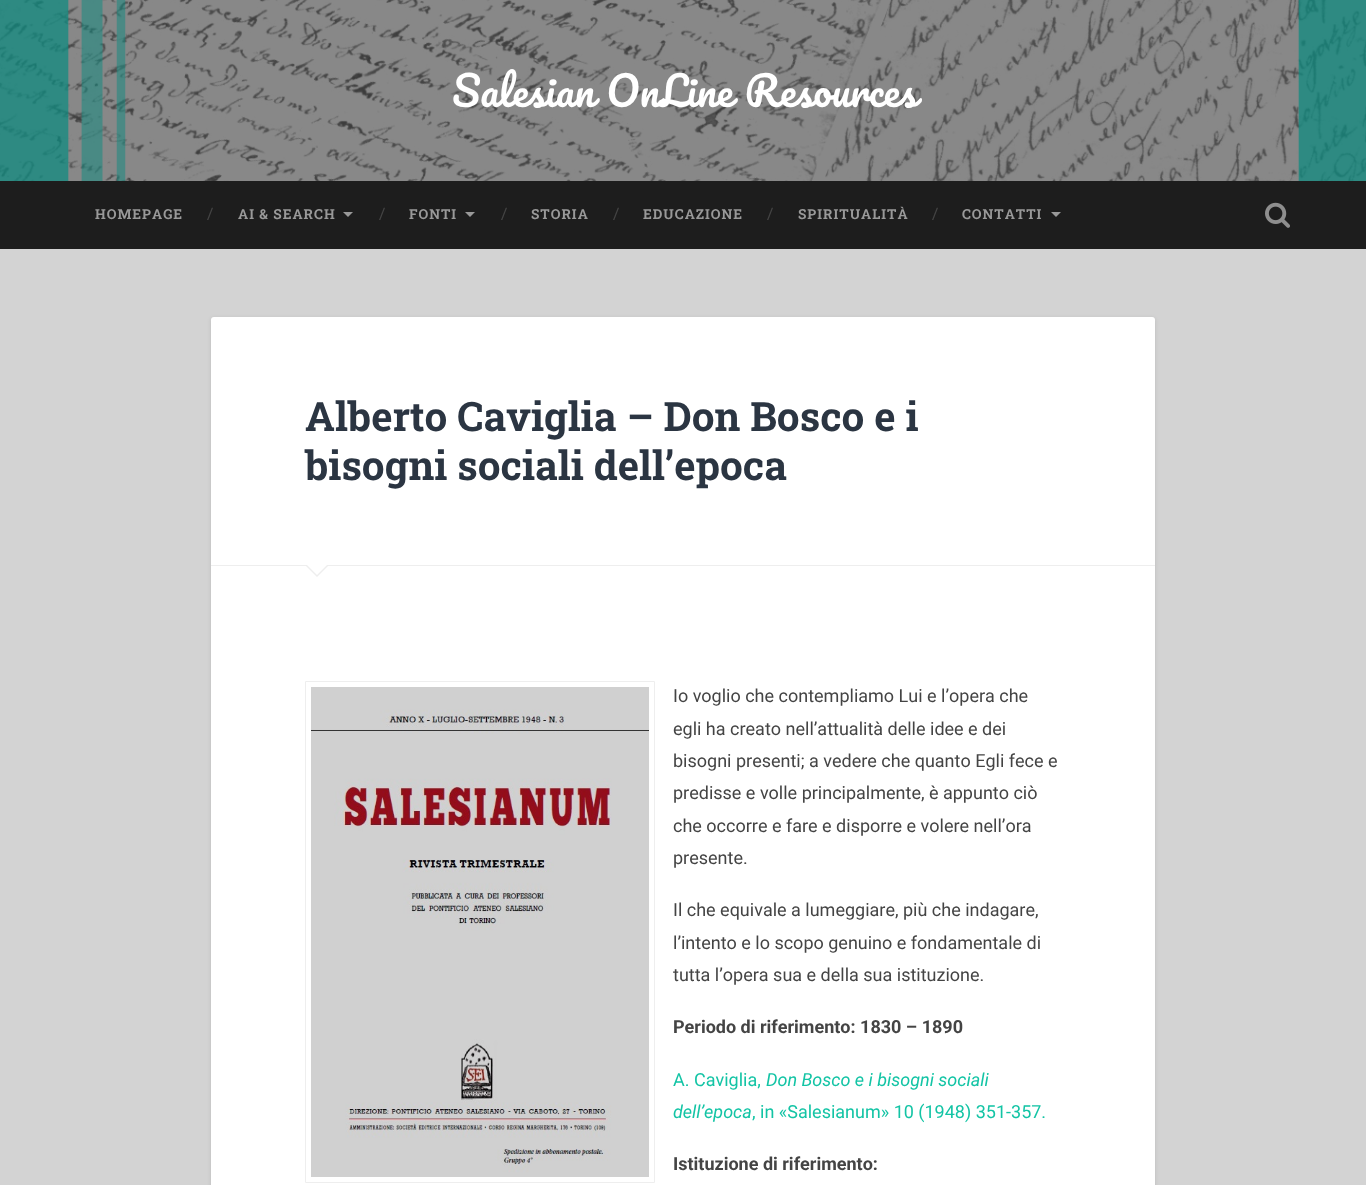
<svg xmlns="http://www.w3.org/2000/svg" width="1366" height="1185">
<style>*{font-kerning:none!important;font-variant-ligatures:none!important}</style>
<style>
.a{font:40.5px Pacifico;fill:#fff}
.b{font:bold 13.75px Roboto Slab;letter-spacing:1px;fill:#999}
.c{font:16px Roboto Slab;fill:#444}
.d{font:bold 40.5px Roboto Slab;fill:#2b3542}
.e{font:18px Roboto;fill:#444}
.f{font:bold 18px Roboto;fill:#444}
.g{font:18px Roboto;fill:#13c4a5}
.h{font:italic 18px Roboto;fill:#13c4a5}
</style>
<rect width="100%" height="100%" fill="#d3d3d3"/>
<image href="1.png" x="0" y="0" width="1366" height="181"/>
<path fill="#1d1d1d" d="M0 181h1366v68H0z"/>
<path fill="#999" d="M343 212h10l-5 5z"/>
<path fill="#999" d="M465 212h10l-5 5z"/>
<path fill="#999" d="M1051 212h10l-5 5z"/>
<image href="2.png" x="1265" y="202" width="25" height="26"/>
<rect fill="#0000001a" filter="blur(2px)" x="211" y="318" width="944" height="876" rx="3"/>
<rect fill="#fff" x="211" y="317" width="944" height="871" rx="3"/>
<path fill="#eee" d="M211 565h944v1H211z"/>
<path fill="#eee" d="M305 565h24l-12 12z"/>
<path fill="#fff" d="M306 564h22l-11 11z"/>
<path fill="none" stroke="#eee" d="M305.5 681.5h349v501H305.5z"/>
<image href="3.png" x="311" y="687" width="338" height="490"/>
<text class="a" x="452" y="107" word-spacing="1">Salesian OnLine Resources</text>
<text class="b" x="95" y="219">HOMEPAGE</text>
<text class="c" x="207" y="219">/</text>
<text class="b" x="238" y="219">AI &amp; SEARCH</text>
<text class="c" x="379" y="219">/</text>
<text class="b" x="409" y="219">FONTI</text>
<text class="c" x="501" y="219">/</text>
<text class="b" x="531" y="219">STORIA</text>
<text class="c" x="613" y="219">/</text>
<text class="b" x="643" y="219">EDUCAZIONE</text>
<text class="c" x="767" y="219">/</text>
<text class="b" x="798" y="219">SPIRITUALITÀ</text>
<text class="c" x="932" y="219">/</text>
<text class="b" x="962" y="219">CONTATTI</text>
<text class="d" x="305" y="431">Alberto Caviglia – Don Bosco e i</text>
<text class="d" x="305" y="480">bisogni sociali dell’epoca</text>
<text class="e" x="673" y="702">Io voglio che contempliamo Lui e l’opera che</text>
<text class="e" x="673" y="735">egli ha creato nell’attualità delle idee e dei</text>
<text class="e" x="673" y="767">bisogni presenti; a vedere che quanto Egli fece e</text>
<text class="e" x="673" y="799">predisse e volle principalmente, è appunto ciò</text>
<text class="e" x="673" y="832">che occorre e fare e disporre e volere nell’ora</text>
<text class="e" x="673" y="864">presente.</text>
<text class="e" x="673" y="916">Il che equivale a lumeggiare, più che indagare,</text>
<text class="e" x="673" y="949">l’intento e lo scopo genuino e fondamentale di</text>
<text class="e" x="673" y="981">tutta l’opera sua e della sua istituzione.</text>
<text class="f" x="673" y="1033">Periodo di riferimento: 1830 – 1890</text>
<text class="g" x="673" y="1086">A. Caviglia,</text>
<text class="h" x="766" y="1086">Don Bosco e i bisogni sociali</text>
<text class="h" x="673" y="1118">dell’epoca</text>
<text class="g" x="752" y="1118">, in «Salesianum» 10 (1948) 351-357.</text>
<text class="f" x="673" y="1170">Istituzione di riferimento:</text>
</svg>
